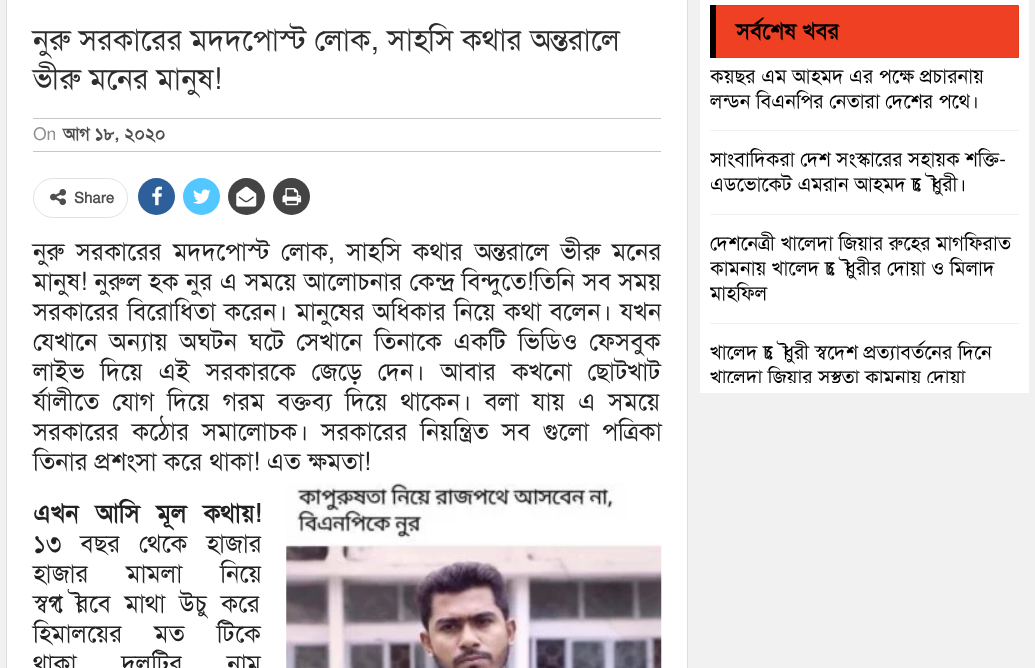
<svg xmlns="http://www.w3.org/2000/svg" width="1035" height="668">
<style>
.a{font:30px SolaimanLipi;fill:#2d2d2d}
.b{font:17.5px SolaimanLipi;fill:#8f8f8f}
.c{font:bold 17.5px SolaimanLipi;fill:#4d4d4d}
.d{font:bold 15px SolaimanLipi;fill:#4d4d4d}
.e{font:25px SolaimanLipi;fill:#222}
.f{font:bold 25px SolaimanLipi;fill:#222}
.g{font:bold 22.5px SolaimanLipi;fill:#000}
.h{font:20px SolaimanLipi;fill:#000}
</style>
<defs>
<clipPath id="clip1"><path d="M710 64h309v319H710z"/></clipPath>
</defs>
<rect width="100%" height="100%" fill="#f1f1f1"/>
<path fill="#fff" stroke="#ddd" d="M6.5 -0.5h681v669H6.5z"/>
<path fill="#c7c7c7" d="M33 118h628v1H33z"/>
<path fill="#c7c7c7" d="M33 151h628v1H33z"/>
<rect fill="none" stroke="#e2e2e2" x="33.5" y="178.5" width="94" height="39" rx="19.5"/>
<image href="1.png" x="50" y="189" width="17" height="17"/>
<circle fill="#2d5f9a" cx="156.5" cy="196.5" r="18.5"/>
<image href="2.png" x="152" y="186" width="10" height="20"/>
<circle fill="#53c7ff" cx="201.5" cy="196.5" r="18.5"/>
<image href="3.png" x="193" y="189" width="18" height="15"/>
<circle fill="#444" cx="246.5" cy="196.5" r="18.5"/>
<image href="4.png" x="236" y="186" width="21" height="21"/>
<circle fill="#444" cx="291.5" cy="196.5" r="18.5"/>
<image href="5.png" x="282" y="188" width="20" height="18"/>
<image href="6.png" x="286" y="483" width="376" height="185"/>
<path fill="#fff" d="M700 0h329v393H700z"/>
<path fill="#ef4023" d="M716 6h302v51H716z"/>
<path fill="none" stroke="#e13c21" d="M710.5 5.5h308v52H710.5z"/>
<path fill="#000" d="M710 5h6v53H710z"/>
<path fill="#f0f0f0" d="M710 130h309v1H710z"/>
<path fill="#f0f0f0" d="M710 214h309v1H710z"/>
<path fill="#f0f0f0" d="M710 323h309v1H710z"/>
<text class="a" x="33" y="50">নুরু সরকারের মদদপোস্ট লোক, সাহসি কথার অন্তরালে</text>
<text class="a" x="33" y="89">ভীরু মনের মানুষ!</text>
<text class="b" x="33" y="140">On</text>
<text class="c" x="63" y="140">আগ ১৮, ২০২০</text>
<text class="d" x="74" y="203">Share</text>
<text class="e" x="33" y="260" word-spacing="4.5">নুরু সরকারের মদদপোস্ট লোক, সাহসি কথার অন্তরালে ভীরু মনের</text>
<text class="e" x="33" y="290" word-spacing="0.5">মানুষ! নুরুল হক নুর এ সময়ে আলোচনার কেন্দ্র বিন্দুতে!তিনি সব সময়</text>
<text class="e" x="33" y="320" word-spacing="1.25">সরকারের বিরোধিতা করেন। মানুষের অধিকার নিয়ে কথা বলেন। যখন</text>
<text class="e" x="33" y="350" word-spacing="4.75">যেখানে অন্যায় অঘটন ঘটে সেখানে তিনাকে একটি ভিডিও ফেসবুক</text>
<text class="e" x="33" y="380" word-spacing="8.75">লাইভ দিয়ে এই সরকারকে জেড়ে দেন। আবার কখনো ছোটখাট</text>
<text class="e" x="33" y="410" word-spacing="6">র্যালীতে যোগ দিয়ে গরম বক্তব্য দিয়ে থাকেন। বলা যায় এ সময়ে</text>
<text class="e" x="33" y="440" word-spacing="6">সরকারের কঠোর সমালোচক। সরকারের নিয়ন্ত্রিত সব গুলো পত্রিকা</text>
<text class="e" x="33" y="470">তিনার প্রশংসা করে থাকা! এত ক্ষমতা!</text>
<text class="f" x="33" y="522" word-spacing="10">এখন আসি মূল কথায়!</text>
<text class="e" x="33" y="552" word-spacing="12">১৩ বছর থেকে হাজার</text>
<text class="e" x="33" y="582" word-spacing="31">হাজার মামলা নিয়ে</text>
<text class="e" x="33" y="612" word-spacing="7">স্বগৌরবে মাথা উচু করে</text>
<text class="e" x="33" y="642" word-spacing="25">হিমালয়ের মত টিকে</text>
<text class="e" x="33" y="672" word-spacing="38">থাকা দলটির নাম</text>
<text class="g" x="736" y="39">সর্বশেষ খবর</text>
<g clip-path="url(#clip1)">
<text class="h" x="710" y="83">কয়ছর এম আহমদ এর পক্ষে প্রচারনায়</text>
<text class="h" x="710" y="108">লন্ডন বিএনপির নেতারা দেশের পথে।</text>
<text class="h" x="710" y="166">সাংবাদিকরা দেশ সংস্কারের সহায়ক শক্তি-</text>
</g>
<text class="h" x="710" y="191">এডভোকেট এমরান আহমদ চৌধুরী।</text>
<g clip-path="url(#clip1)">
<text class="h" x="710" y="250">দেশনেত্রী খালেদা জিয়ার রুহের মাগফিরাত</text>
<text class="h" x="710" y="275">কামনায় খালেদ চৌধুরীর দোয়া ও মিলাদ</text>
<text class="h" x="710" y="300">মাহফিল</text>
<text class="h" x="710" y="359">খালেদ চৌধুরী স্বদেশ প্রত্যাবর্তনের দিনে</text>
<text class="h" x="710" y="384">খালেদা জিয়ার সুস্থতা কামনায় দোয়া</text>
</g>
</svg>
